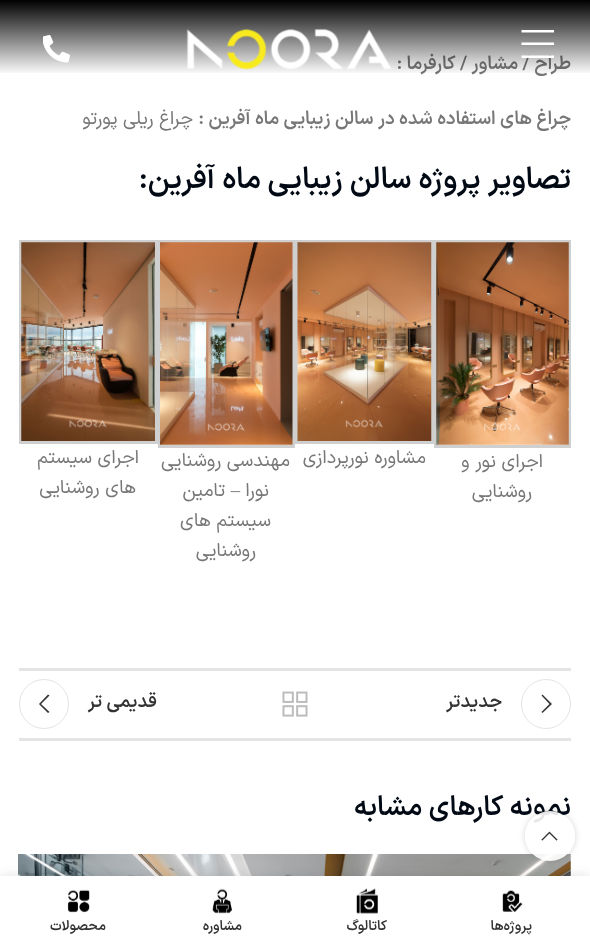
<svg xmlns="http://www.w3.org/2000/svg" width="590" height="944">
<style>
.a{font:600 18.75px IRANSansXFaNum;direction:rtl;fill:#777}
.b{font:18.75px IRANSansXFaNum;direction:rtl;fill:#777}
.c{font:600 30px IRANSansXFaNum;direction:rtl;fill:#000914}
.d{font:600 30px IRANSansXFaNum;fill:#000914}
.e{font:18.75px Liberation Serif;direction:rtl;fill:#777}
.f{font:600 18.75px IRANSansXFaNum;direction:rtl;fill:#333}
.g{font:600 27.5px IRANSansXFaNum;direction:rtl;fill:#000914}
.h{font:600 13.75px IRANSansXFaNum;direction:rtl;fill:#333}
</style>
<defs>
<clipPath id="clip1"><path d="M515 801h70v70h-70zm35 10c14 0 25 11 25 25c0 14-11 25-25 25c-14 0-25-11-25-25c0-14 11-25 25-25z" clip-rule="evenodd"/></clipPath>
<linearGradient id="g1" gradientUnits="userSpaceOnUse" x1="295" y1="0" x2="295" y2="75"><stop offset="0" stop-color="#000"/><stop offset="1" stop-color="#000" stop-opacity="0"/></linearGradient>
</defs>
<rect width="100%" height="100%" fill="#fff"/>
<path fill="none" stroke="#cfcfcf" stroke-width="3" d="M435.5 241.5h134v205H435.5z"/>
<image href="3.png" x="436" y="242" width="133" height="203"/>
<path fill="none" stroke="#cfcfcf" stroke-width="3" d="M296.5 241.5h136v201H296.5z"/>
<image href="4.png" x="297" y="242" width="135" height="199"/>
<path fill="none" stroke="#cfcfcf" stroke-width="3" d="M159.5 241.5h134v205H159.5z"/>
<image href="5.png" x="160" y="242" width="133" height="203"/>
<path fill="none" stroke="#cfcfcf" stroke-width="3" d="M20.5 241.5h136v201H20.5z"/>
<image href="6.png" x="21" y="242" width="134" height="199"/>
<path fill="#e4e4e4" d="M19 668h552v3H19z"/>
<path fill="#e4e4e4" d="M19 738h552v3H19z"/>
<circle fill="none" stroke="#e4e4e4" cx="546" cy="704" r="24.5"/>
<path fill="#333" d="M541.5 695.5l8 8.5l-8 8l1 1l9.5-9l-9.5-9.5z"/>
<image href="7.png" x="282" y="691" width="26" height="26"/>
<circle fill="none" stroke="#e4e4e4" cx="44" cy="704" r="24.5"/>
<path fill="#333" d="M49.5 695.5l-1.5-1l-9 9.5l9 9l1.5-1l-8.5-8z"/>
<image href="8.png" x="18" y="854" width="553" height="22"/>
<g clip-path="url(#clip1)">
<rect fill="#0000002b" filter="blur(3px)" x="525" y="811" width="50" height="50" rx="25"/>
</g>
<text class="a" x="571" y="69">طراح / مشاور / کارفرما :</text>
<path fill="url(#g1)" d="M0 0h590v73H0z"/>
<image href="2.png" x="43" y="35" width="27" height="28"/>
<image href="1.png" x="186" y="29" width="206" height="41"/>
<path fill="#fff" d="M521.5 30v2.5h32.5v-2.5zm0 12.5v2.5h32.5v-2.5zm0 13v2.5h32.5v-2.5z"/>
<text class="a" x="571" y="124">چراغ های استفاده شده در سالن زیبایی ماه آفرین :</text>
<text class="b" x="193" y="124">چراغ ریلی پورتو</text>
<text class="c" x="571" y="188">تصاویر پروژه سالن زیبایی</text>
<text class="c" x="261" y="188">ماه آفرین</text>
<text class="d" x="139" y="188">:</text>
<text class="b" x="543" y="467">اجرای نور و</text>
<text class="b" x="532" y="497">روشنایی</text>
<text class="b" x="426" y="463">مشاوره نورپردازی</text>
<text class="b" x="290" y="466">مهندسی روشنایی</text>
<text class="b" x="269" y="496">نورا</text>
<text class="e" x="240" y="496">–</text>
<text class="b" x="225" y="496">تامین</text>
<text class="b" x="271" y="526">سیستم های</text>
<text class="b" x="256" y="556">روشنایی</text>
<text class="b" x="139" y="463">اجرای سیستم</text>
<text class="b" x="136" y="493">های روشنایی</text>
<text class="f" x="502" y="707">جدیدتر</text>
<text class="f" x="157" y="707">قدیمی تر</text>
<text class="g" x="571" y="815">نمونه کارهای مشابه</text>
<circle fill="#ffffffe6" cx="550" cy="836" r="25"/>
<image href="9.png" x="541" y="831" width="17" height="10"/>
<path fill="#0000001f" filter="blur(5.5px)" d="M0 876h590v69H0z"/>
<path fill="#fff" d="M0 876h590v68H0z"/>
<image href="10.png" x="502" y="890" width="21" height="22"/>
<text class="h" x="532" y="930">پروژه‌ها</text>
<image href="11.png" x="356" y="888" width="22" height="26"/>
<text class="h" x="387" y="930">کاتالوگ</text>
<image href="12.png" x="212" y="888" width="20" height="26"/>
<text class="h" x="242" y="930">مشاوره</text>
<image href="13.png" x="67" y="889" width="23" height="24"/>
<text class="h" x="106" y="930">محصولات</text>
</svg>
